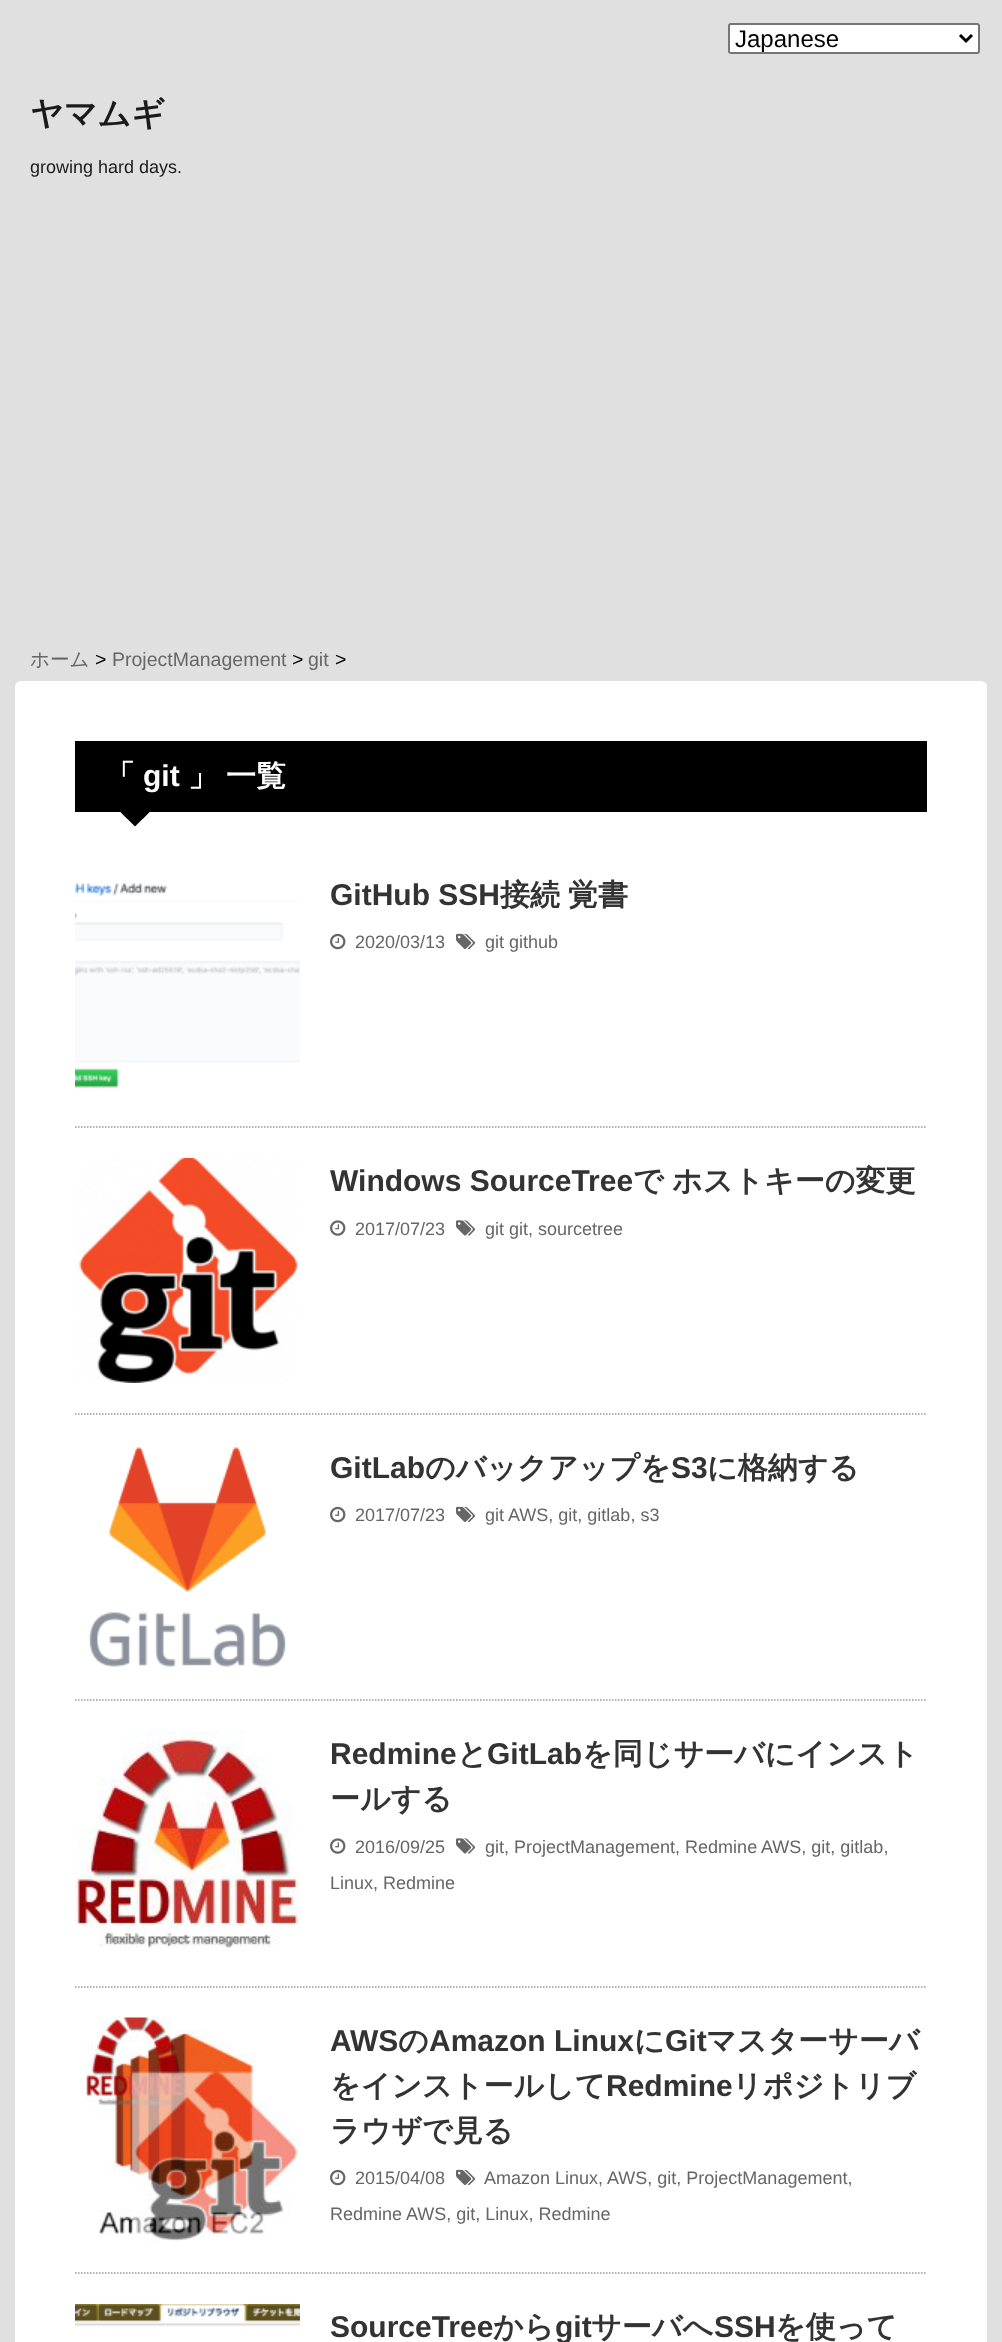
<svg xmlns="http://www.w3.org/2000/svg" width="1002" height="2342">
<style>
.a{font:24px Liberation Sans;fill:#000}
.b{font:bold 33px WenQuanYi Zen Hei;fill:#1a1a1a}
.c{font:18px Liberation Sans;fill:#1a1a1a}
.d{font:500 19.5px WenQuanYi Zen Hei;fill:#666}
.e{font:19.5px Liberation Sans;fill:#000}
.f{font:19.5px Liberation Sans;fill:#666}
.g{font:bold 30px WenQuanYi Zen Hei;fill:#fff}
.h{font:bold 30px Liberation Sans;fill:#fff}
.i{font:bold 30px Liberation Sans;fill:#333}
.j{font:bold 30px WenQuanYi Zen Hei;fill:#333}
.k{font:18px Liberation Sans;fill:#666}
</style>
<rect width="100%" height="100%" fill="#e0e0e0"/>
<rect fill="#fff" stroke="#767676" stroke-width="2" x="729" y="24" width="250" height="29" rx="2"/>
<path fill="none" stroke="#000" stroke-width="3" d="M960 35l6 6l6-6"/>
<rect fill="#fff" x="15" y="681" width="972" height="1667" rx="6"/>
<path fill="#000" d="M75 741h852v71H75z"/>
<path fill="#000" d="M120 811.5h30l-15 15z"/>
<path fill="#000" d="M123 811.5c-1 0-1.5 .5-2 1l6.5 6.5h15l6.5-6.5c-.5-.5-1-1-2-1z"/>
<path fill="none" stroke="#999" stroke-width="1.5" stroke-dasharray="1.5 1.5" d="M75 1127h852"/>
<image href="1.png" x="75" y="883" width="225" height="205"/>
<image href="2.png" x="330" y="933" width="16" height="17"/>
<image href="3.png" x="456" y="933" width="19" height="16"/>
<path fill="none" stroke="#999" stroke-width="1.5" stroke-dasharray="1.5 1.5" d="M75 1414h852"/>
<image href="4.png" x="75" y="1158" width="223" height="225"/>
<image href="5.png" x="330" y="1220" width="16" height="16"/>
<image href="6.png" x="456" y="1220" width="20" height="16"/>
<path fill="none" stroke="#999" stroke-width="1.5" stroke-dasharray="1.5 1.5" d="M75 1700h852"/>
<image href="7.png" x="89" y="1447" width="197" height="220"/>
<image href="2.png" x="330" y="1506" width="16" height="17"/>
<image href="3.png" x="456" y="1506" width="19" height="16"/>
<path fill="none" stroke="#999" stroke-width="1.5" stroke-dasharray="1.5 1.5" d="M75 1987h852"/>
<image href="8.png" x="75" y="1731" width="225" height="217"/>
<image href="5.png" x="330" y="1838" width="16" height="16"/>
<image href="6.png" x="456" y="1838" width="20" height="16"/>
<path fill="none" stroke="#999" stroke-width="1.5" stroke-dasharray="1.5 1.5" d="M75 2273h852"/>
<image href="9.png" x="85" y="2017" width="215" height="224"/>
<image href="2.png" x="330" y="2169" width="16" height="17"/>
<image href="3.png" x="456" y="2169" width="19" height="16"/>
<image href="10.png" x="75" y="2304" width="225" height="23"/>
<text class="a" x="735" y="47">Japanese</text>
<text class="b" x="30" y="125">ヤマムギ</text>
<text class="c" x="30" y="173">growing hard days.</text>
<text class="d" x="30" y="666">ホーム</text>
<text class="e" x="95" y="666">&gt;</text>
<text class="f" x="112" y="666">ProjectManagement</text>
<text class="e" x="292" y="666">&gt;</text>
<text class="f" x="308" y="666">git</text>
<text class="e" x="335" y="666">&gt;</text>
<text class="g" x="105" y="786">「</text>
<text class="h" x="143" y="786">git</text>
<text class="g" x="188" y="786" word-spacing="-1">」 一覧</text>
<text class="i" x="330" y="905">GitHub SSH</text>
<text class="j" x="500" y="905">接続</text>
<text class="j" x="568" y="905">覚書</text>
<text class="k" x="355" y="948">2020/03/13</text>
<text class="k" x="485" y="948">git github</text>
<text class="i" x="330" y="1191">Windows SourceTree</text>
<text class="j" x="633" y="1191">で</text>
<text class="j" x="672" y="1191">ホストキーの変更</text>
<text class="k" x="355" y="1235">2017/07/23</text>
<text class="k" x="485" y="1235">git git, sourcetree</text>
<text class="i" x="330" y="1478">GitLab</text>
<text class="j" x="425" y="1478">のバックアップを</text>
<text class="i" x="671" y="1478">S3</text>
<text class="j" x="707" y="1478">に格納する</text>
<text class="k" x="355" y="1521">2017/07/23</text>
<text class="k" x="485" y="1521">git</text>
<text class="k" x="508" y="1521">AWS, git, gitlab, s3</text>
<text class="i" x="330" y="1764">Redmine</text>
<text class="j" x="457" y="1764">と</text>
<text class="i" x="487" y="1764">GitLab</text>
<text class="j" x="582" y="1764">を同じサーバにインスト</text>
<text class="j" x="330" y="1809">ールする</text>
<text class="k" x="485" y="1853">git, ProjectManagement, Redmine</text>
<text class="k" x="761" y="1853">AWS, git, gitlab,</text>
<text class="k" x="330" y="1889">Linux, Redmine</text>
<text class="k" x="355" y="1853">2016/09/25</text>
<text class="i" x="330" y="2051">AWS</text>
<text class="j" x="398" y="2051">の</text>
<text class="i" x="429" y="2051">Amazon Linux</text>
<text class="j" x="634" y="2051">に</text>
<text class="i" x="665" y="2051">Git</text>
<text class="j" x="706" y="2051">マスターサーバ</text>
<text class="j" x="330" y="2096">をインストールして</text>
<text class="i" x="606" y="2096">Redmine</text>
<text class="j" x="732" y="2096">リポジトリブ</text>
<text class="j" x="330" y="2141">ラウザで見る</text>
<text class="k" x="484" y="2184">Amazon Linux,</text>
<text class="k" x="607" y="2184">AWS, git, ProjectManagement,</text>
<text class="k" x="330" y="2220">Redmine</text>
<text class="k" x="406" y="2220">AWS, git, Linux, Redmine</text>
<text class="k" x="355" y="2184">2015/04/08</text>
<text class="i" x="330" y="2337">SourceTree</text>
<text class="j" x="493" y="2337">から</text>
<text class="i" x="555" y="2337">git</text>
<text class="j" x="591" y="2337">サーバへ</text>
<text class="i" x="714" y="2337">SSH</text>
<text class="j" x="775" y="2337">を使って</text>
</svg>
